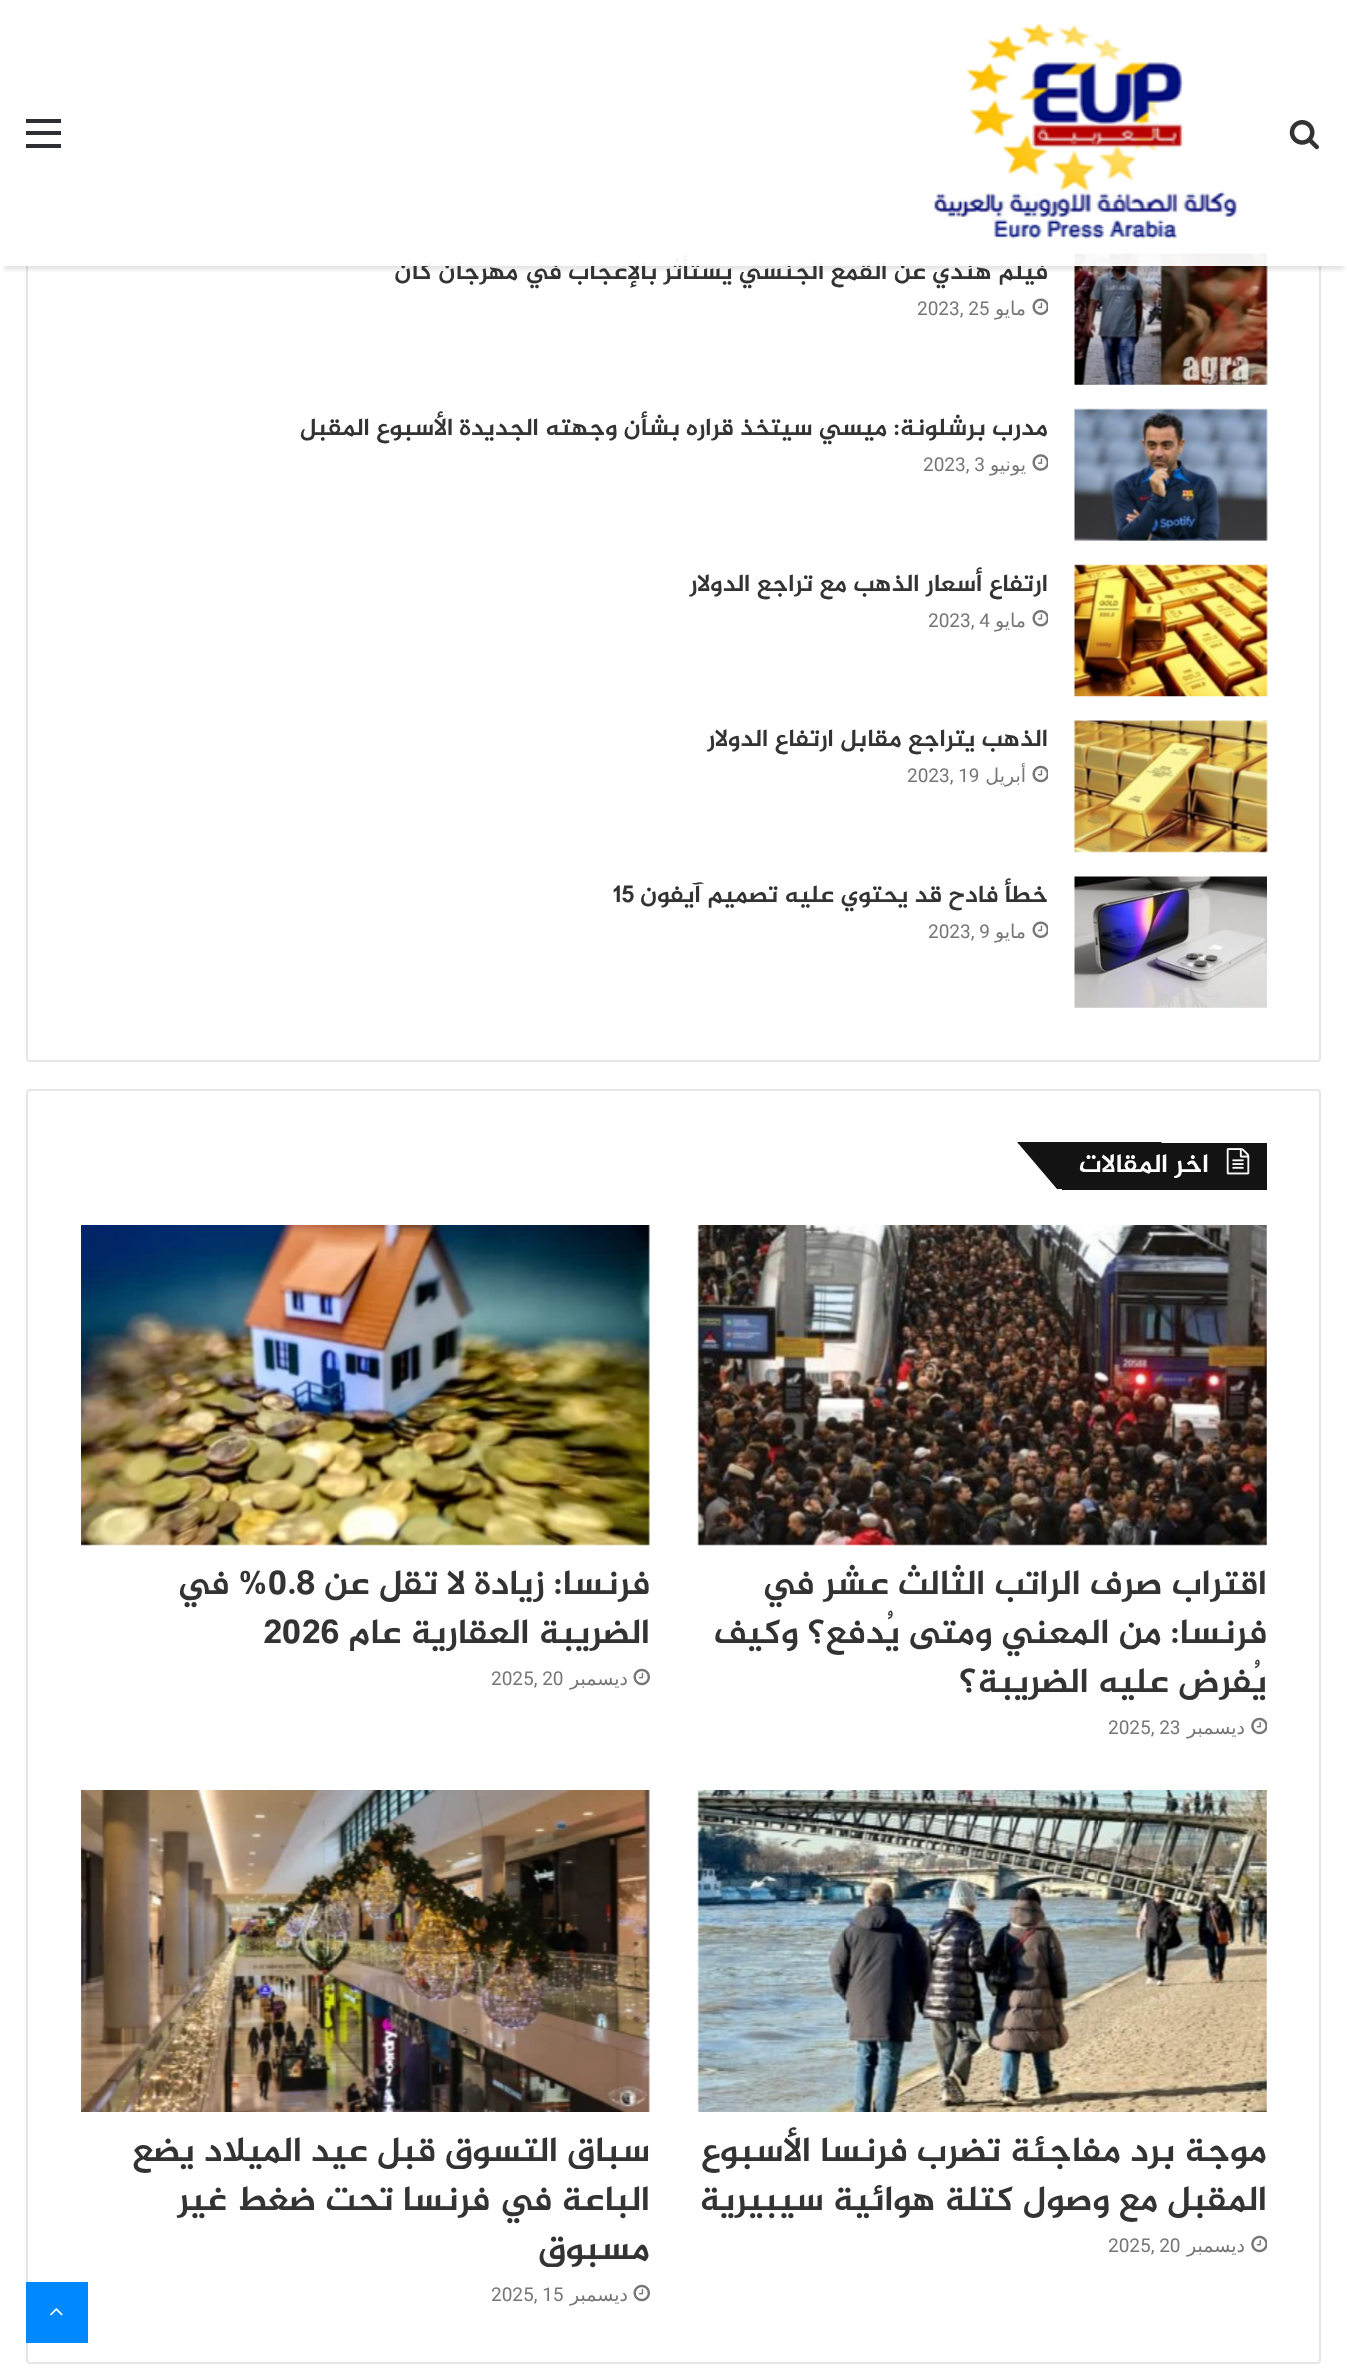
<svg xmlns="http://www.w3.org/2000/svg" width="1347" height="2368">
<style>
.a{font:bold 24.5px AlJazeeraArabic;direction:rtl;fill:#333}
.b{font:19px DejaVu Sans;direction:rtl;fill:#767676}
.c{font:19px Roboto;fill:#767676}
.d{font:bold 24.5px AlJazeeraArabic;fill:#333}
.e{font:bold 26.25px AlJazeeraArabic;direction:rtl;fill:#fff}
.f{font:bold 35px AlJazeeraArabic;direction:rtl;fill:#333}
.g{font:bold 35px AlJazeeraArabic;fill:#333}
</style>
<defs>
<clipPath id="clip1"><path d="M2 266h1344v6H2z"/></clipPath>
</defs>
<rect width="100%" height="100%" fill="#fff"/>
<rect fill="none" stroke="#e6e6e6" stroke-width="2" x="27" y="83" width="1293" height="978" rx="3"/>
<path fill="#0000001a" d="M28 200h1292v2H28z"/>
<path fill="#fff" d="M1317 84h3v116H1317z"/>
<path fill="#e6e6e6" d="M894 200v-116h2v114z"/>
<path fill="#fafafa" d="M464 84h430v116H464z"/>
<path fill="#e1e1e1" d="M464 200v-116h2v114z"/>
<image href="3.png" x="1074" y="252" width="194" height="133"/>
<g clip-path="url(#clip1)">
<path fill="#0000001a" filter="blur(2px)" d="M4 11h1340v259H4z"/>
</g>
<rect fill="none" stroke="#e6e6e6" stroke-width="2" x="10" y="-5" width="1310" height="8" rx="3"/>
<path fill="#fafafa" d="M11 0h1309v2H11z"/>
<image href="4.png" x="1032" y="298" width="16" height="17"/>
<image href="5.png" x="1074" y="408" width="194" height="133"/>
<image href="6.png" x="1032" y="454" width="16" height="17"/>
<image href="7.png" x="1074" y="564" width="194" height="133"/>
<image href="8.png" x="1032" y="610" width="16" height="17"/>
<image href="9.png" x="1074" y="720" width="194" height="133"/>
<image href="10.png" x="1032" y="765" width="16" height="18"/>
<image href="11.png" x="1074" y="876" width="193" height="132"/>
<image href="4.png" x="1032" y="921" width="16" height="17"/>
<rect fill="none" stroke="#e6e6e6" stroke-width="2" x="27" y="1090" width="1293" height="1273" rx="3"/>
<path fill="#131313" d="M1062 1143h205v47H1062z"/>
<path fill="#131313" d="M1017 1142h144l40 47h-144z"/>
<image href="12.png" x="1226" y="1148" width="24" height="27"/>
<image href="13.png" x="697" y="1225" width="570" height="321"/>
<image href="14.png" x="1251" y="1717" width="16" height="18"/>
<image href="15.png" x="81" y="1225" width="569" height="321"/>
<image href="16.png" x="633" y="1668" width="17" height="18"/>
<image href="17.png" x="697" y="1790" width="570" height="322"/>
<image href="14.png" x="1251" y="2235" width="16" height="18"/>
<image href="18.png" x="81" y="1790" width="569" height="322"/>
<image href="16.png" x="633" y="2284" width="17" height="18"/>
<path fill="#08f" d="M26 2282h62v61H26z"/>
<image href="19.png" x="50" y="2308" width="13" height="8"/>
<text class="a" x="1048" y="279">فيلم هندي عن القمع الجنسي يستأثر بالإعجاب في مهرجان كان</text>
<path fill="#fffffff2" d="M9 0h1312v266H9z"/>
<image href="1.png" x="1289" y="120" width="30" height="30"/>
<path fill="#2c2f34" d="M26 144h35v4H26z"/>
<path fill="#2c2f34" d="M26 119h35v4H26z"/>
<path fill="#2c2f34" d="M26 131h35v4H26z"/>
<image href="2.png" x="932" y="24" width="305" height="215"/>
<text class="b" x="1026" y="315">مايو</text>
<text class="c" x="917" y="315">2023, 25</text>
<text class="a" x="1048" y="435">مدرب برشلونة: ميسي سيتخذ قراره بشأن وجهته الجديدة الأسبوع المقبل</text>
<text class="b" x="1026" y="471">يونيو</text>
<text class="c" x="923" y="471">2023, 3</text>
<text class="a" x="1048" y="591">ارتفاع أسعار الذهب مع تراجع الدولار</text>
<text class="b" x="1026" y="627">مايو</text>
<text class="c" x="928" y="627">2023, 4</text>
<text class="a" x="1048" y="746">الذهب يتراجع مقابل ارتفاع الدولار</text>
<text class="b" x="1026" y="782">أبريل</text>
<text class="c" x="907" y="782">2023, 19</text>
<text class="a" x="1048" y="902">خطأ فادح قد يحتوي عليه تصميم آيفون</text>
<text class="d" x="613" y="902">15</text>
<text class="b" x="1026" y="938">مايو</text>
<text class="c" x="928" y="938">2023, 9</text>
<text class="e" x="1209" y="1172">اخر المقالات</text>
<text class="f" x="1267" y="1594">اقتراب صرف الراتب الثالث عشر في</text>
<text class="f" x="1267" y="1643">فرنسا: من المعني ومتى يُدفع؟ وكيف</text>
<text class="f" x="1267" y="1692">يُفرض عليه الضريبة؟</text>
<text class="b" x="1245" y="1734">ديسمبر</text>
<text class="c" x="1108" y="1734">2025, 23</text>
<text class="f" x="650" y="1594">فرنسا: زيادة لا تقل عن</text>
<text class="g" x="268" y="1594">0.8</text>
<text class="f" x="268" y="1594">% في</text>
<text class="f" x="650" y="1643">الضريبة العقارية عام</text>
<text class="g" x="263" y="1643">2026</text>
<text class="b" x="628" y="1685">ديسمبر</text>
<text class="c" x="491" y="1685">2025, 20</text>
<text class="f" x="1267" y="2161">موجة برد مفاجئة تضرب فرنسا الأسبوع</text>
<text class="f" x="1267" y="2210">المقبل مع وصول كتلة هوائية سيبيرية</text>
<text class="b" x="1245" y="2252">ديسمبر</text>
<text class="c" x="1108" y="2252">2025, 20</text>
<text class="f" x="650" y="2161">سباق التسوق قبل عيد الميلاد يضع</text>
<text class="f" x="650" y="2210">الباعة في فرنسا تحت ضغط غير</text>
<text class="f" x="650" y="2259">مسبوق</text>
<text class="b" x="628" y="2301">ديسمبر</text>
<text class="c" x="491" y="2301">2025, 15</text>
</svg>
